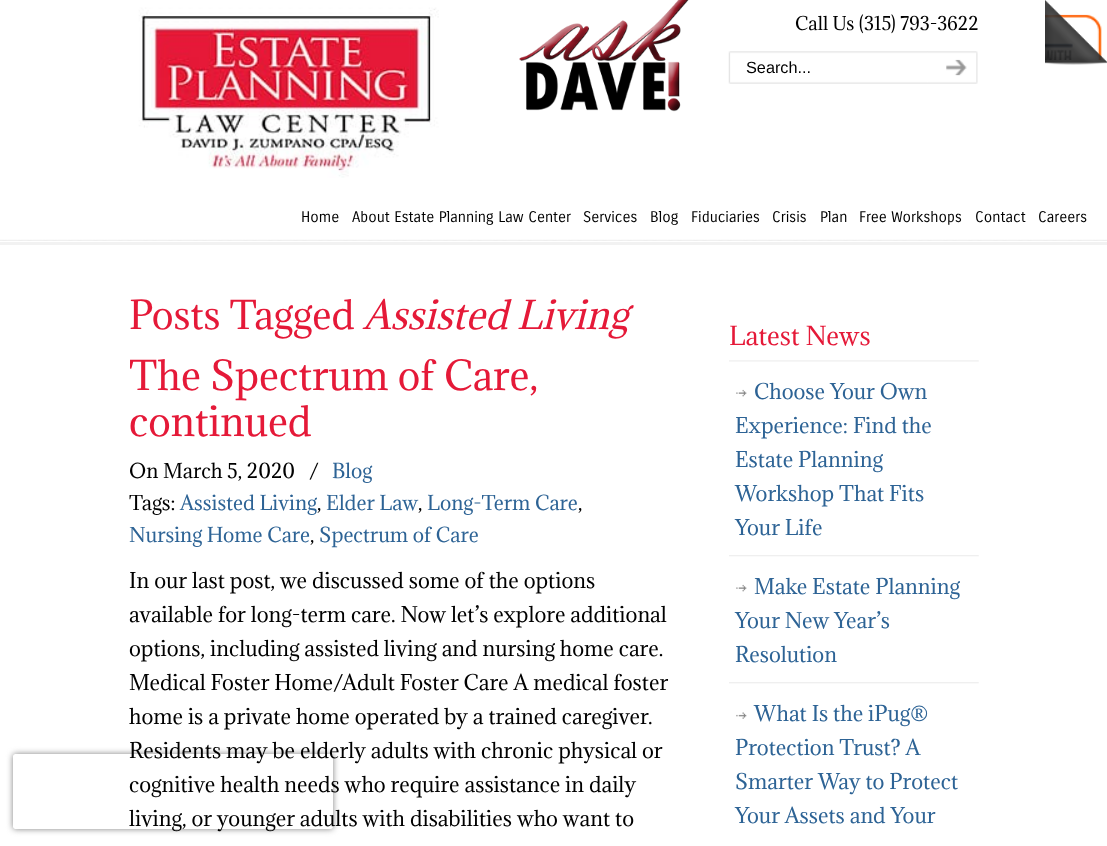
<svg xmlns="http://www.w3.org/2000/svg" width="1107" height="846">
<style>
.a{font:17.5px Adamina;fill:#000}
.b{font:16.25px Liberation Sans;fill:#000}
.c{font:15px Carrois Gothic;fill:#000}
.d{font:36.75px Adamina;fill:#e51938}
.e{font:italic 36.75px Adamina;fill:#e51938}
.f{font:38px Adamina;fill:#e51938}
.g{font:19px Adamina;fill:#000}
.h{font:19px Adamina;fill:#2d6395}
.i{font:20px Adamina;fill:#000}
.j{font:24.25px Adamina;fill:#e51938}
.k{font:20px Adamina;fill:#2d6395}
</style>
<defs>
<clipPath id="clip1"><path d="M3 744h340v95h-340zm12.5 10h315c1.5 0 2.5 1 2.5 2.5v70c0 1.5-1 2.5-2.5 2.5h-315c-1.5 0-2.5-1-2.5-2.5v-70c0-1.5 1-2.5 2.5-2.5z" clip-rule="evenodd"/></clipPath>
</defs>
<rect width="100%" height="100%" fill="#fff"/>
<image href="2.png" x="1045" y="14" width="57" height="46"/>
<image href="1.png" x="1045" y="0" width="62" height="65"/>
<image href="3.png" x="129" y="7" width="310" height="171"/>
<image href="4.png" x="519" y="0" width="170" height="112"/>
<image href="5.png" x="728" y="51" width="200" height="33"/>
<image href="6.png" x="927" y="51" width="51" height="33"/>
<image href="7.png" x="0" y="239" width="1107" height="2"/>
<path fill="#f2f2f2" d="M0 242h1107v3H0z"/>
<image href="8.png" x="729" y="360" width="250" height="2"/>
<image href="9.png" x="729" y="555" width="250" height="2"/>
<image href="10.png" x="736" y="389" width="11" height="8"/>
<image href="11.png" x="729" y="682" width="250" height="2"/>
<image href="10.png" x="736" y="584" width="11" height="8"/>
<image href="12.png" x="736" y="712" width="11" height="7"/>
<g clip-path="url(#clip1)">
<rect fill="#808080" filter="blur(3px)" x="13" y="754" width="320" height="75" rx="2.5"/>
</g>
<text class="a" x="795" y="30">Call Us (315) 793-3622</text>
<text class="b" x="746" y="73">Search...</text>
<text class="c" x="301" y="222">Home</text>
<text class="c" x="352" y="222">About Estate Planning Law Center</text>
<text class="c" x="583" y="222">Services</text>
<text class="c" x="650" y="222">Blog</text>
<text class="c" x="691" y="222">Fiduciaries</text>
<text class="c" x="772" y="222">Crisis</text>
<text class="c" x="820" y="222">Plan</text>
<text class="c" x="859" y="222">Free Workshops</text>
<text class="c" x="975" y="222">Contact</text>
<text class="c" x="1038" y="222">Careers</text>
<text class="d" x="129" y="329">Posts Tagged</text>
<text class="e" x="363" y="329">Assisted Living</text>
<text class="f" x="129" y="390">The Spectrum of Care,</text>
<text class="f" x="129" y="436">continued</text>
<text class="g" x="129" y="478">On March 5, 2020</text>
<text class="g" x="309" y="478">/</text>
<text class="h" x="332" y="478">Blog</text>
<text class="g" x="129" y="510">Tags:</text>
<text class="h" x="180" y="510">Assisted Living</text>
<text class="g" x="317" y="510">,</text>
<text class="h" x="326" y="510">Elder Law</text>
<text class="g" x="418" y="510">,</text>
<text class="h" x="427" y="510">Long-Term Care</text>
<text class="g" x="578" y="510">,</text>
<text class="h" x="129" y="542">Nursing Home Care</text>
<text class="g" x="310" y="542">,</text>
<text class="h" x="319" y="542">Spectrum of Care</text>
<text class="i" x="129" y="588">In our last post, we discussed some of the options</text>
<text class="i" x="129" y="622">available for long-term care. Now let’s explore additional</text>
<text class="i" x="129" y="656">options, including assisted living and nursing home care.</text>
<text class="i" x="129" y="690">Medical Foster Home/Adult Foster Care A medical foster</text>
<text class="i" x="129" y="724">home is a private home operated by a trained caregiver.</text>
<text class="i" x="129" y="758">Residents may be elderly adults with chronic physical or</text>
<text class="i" x="129" y="792">cognitive health needs who require assistance in daily</text>
<text class="i" x="129" y="826">living, or younger adults with disabilities who want to</text>
<text class="j" x="729" y="345">Latest News</text>
<text class="k" x="754" y="399">Choose Your Own</text>
<text class="k" x="735" y="433">Experience: Find the</text>
<text class="k" x="735" y="467">Estate Planning</text>
<text class="k" x="735" y="501">Workshop That Fits</text>
<text class="k" x="735" y="535">Your Life</text>
<text class="k" x="754" y="594">Make Estate Planning</text>
<text class="k" x="735" y="628">Your New Year’s</text>
<text class="k" x="735" y="662">Resolution</text>
<text class="k" x="754" y="721">What Is the iPug®</text>
<text class="k" x="735" y="755">Protection Trust? A</text>
<text class="k" x="735" y="789">Smarter Way to Protect</text>
<text class="k" x="735" y="823">Your Assets and Your</text>
</svg>
